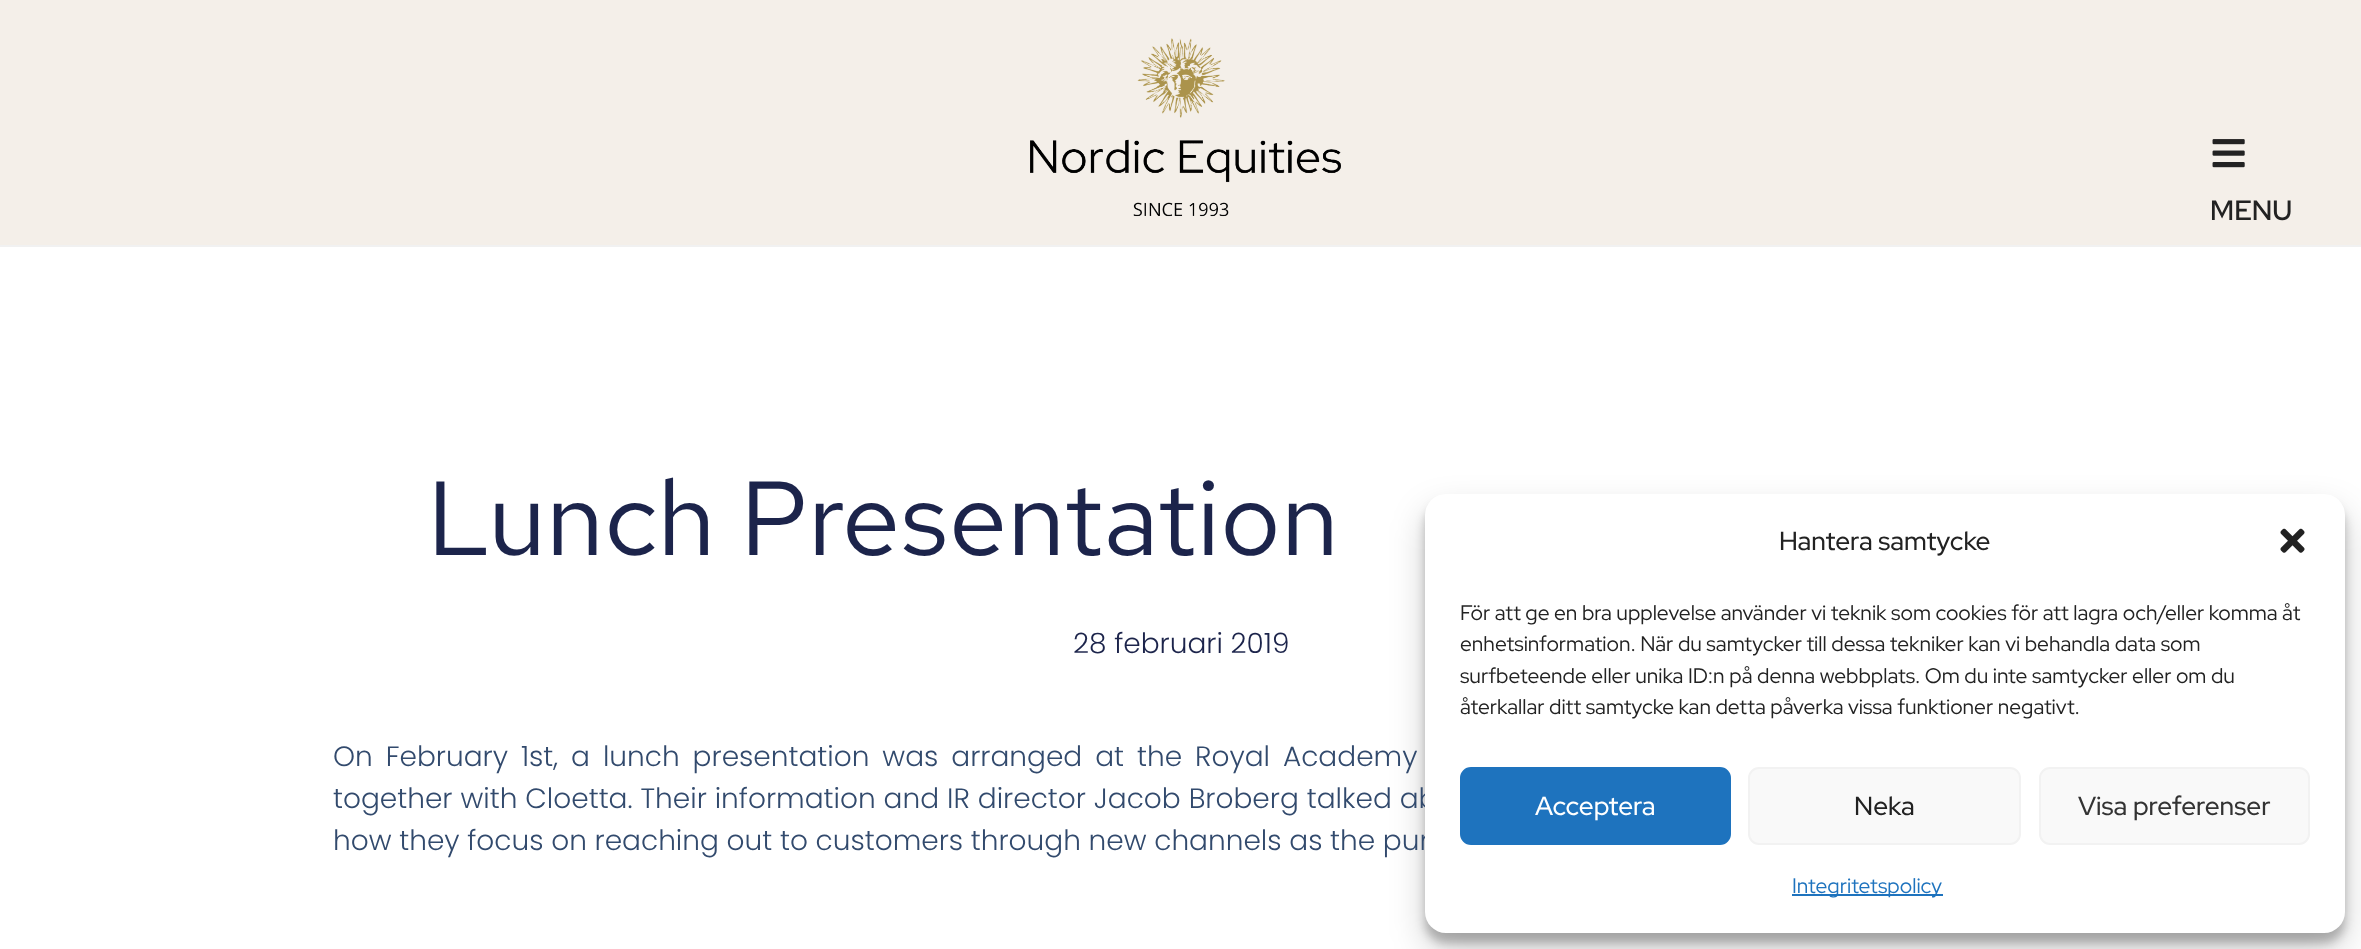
<svg xmlns="http://www.w3.org/2000/svg" width="2361" height="949">
<style>
.a{font:600 28px Red Hat Display;fill:#222}
.b{font:105px Red Hat Text;fill:#1c244b}
.c{font:300 28px Poppins;fill:#1c244b}
.d{font:300 28px Poppins;fill:#324a6d}
.e{font:500 26.25px Red Hat Display;fill:#222}
.f{font:21px Red Hat Display;fill:#222}
.g{font:500 26.25px Red Hat Display;fill:#fff}
.h{font:500 26.25px Red Hat Display;fill:#333}
.i{font:21px Red Hat Display;fill:#1e73be}
</style>
<rect width="100%" height="100%" fill="#fff"/>
<path fill="#f1f1f1" d="M0 245h2361v2H0z"/>
<path fill="#f4efe9" d="M0 0h2361v245H0z"/>
<image href="1.png" x="1030" y="38" width="311" height="179"/>
<image href="2.png" x="2212" y="139" width="33" height="29"/>
<rect fill="#0000003b" filter="blur(5px)" x="1425" y="504" width="920" height="439" rx="21"/>
<rect fill="#00000030" filter="blur(17.5px)" x="1425" y="511" width="920" height="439" rx="21"/>
<text class="a" x="2210" y="220">MENU</text>
<text class="b" x="427" y="555">Lunch Presentation</text>
<text class="c" x="1073" y="653">28 februari 2019</text>
<text class="d" x="333" y="766" word-spacing="5.25">On February 1st, a lunch presentation was arranged at the Royal Academy</text>
<text class="d" x="333" y="808" word-spacing="0.25">together with Cloetta. Their information and IR director Jacob Broberg talked ab</text>
<text class="d" x="333" y="850">how they focus on reaching out to customers through new channels as the pur</text>
<rect fill="#fff" x="1425" y="494" width="920" height="439" rx="21"/>
<text class="e" x="1779" y="550">Hantera samtycke</text>
<image href="3.png" x="2280" y="528" width="25" height="25"/>
<text class="f" x="1460" y="620">För att ge en bra upplevelse använder vi teknik som cookies för att lagra och/eller komma åt</text>
<text class="f" x="1460" y="651">enhetsinformation. När du samtycker till dessa tekniker kan vi behandla data som</text>
<text class="f" x="1460" y="683">surfbeteende eller unika ID:n på denna webbplats. Om du inte samtycker eller om du</text>
<text class="f" x="1460" y="714">återkallar ditt samtycke kan detta påverka vissa funktioner negativt.</text>
<rect fill="#1e73be" stroke="#1e73be" stroke-width="2" x="1461" y="768" width="269" height="76" rx="10"/>
<text class="g" x="1535" y="815">Acceptera</text>
<rect fill="#f9f9f9" stroke="#f2f2f2" stroke-width="2" x="1749" y="768" width="271" height="76" rx="10"/>
<text class="e" x="1854" y="815">Neka</text>
<rect fill="#f9f9f9" stroke="#f2f2f2" stroke-width="2" x="2040" y="768" width="269" height="76" rx="10"/>
<text class="h" x="2078" y="815">Visa preferenser</text>
<path fill="#1e73be" d="M1792 894h151v2H1792z"/>
<text class="i" x="1792" y="893">Integritetspolicy</text>
</svg>
